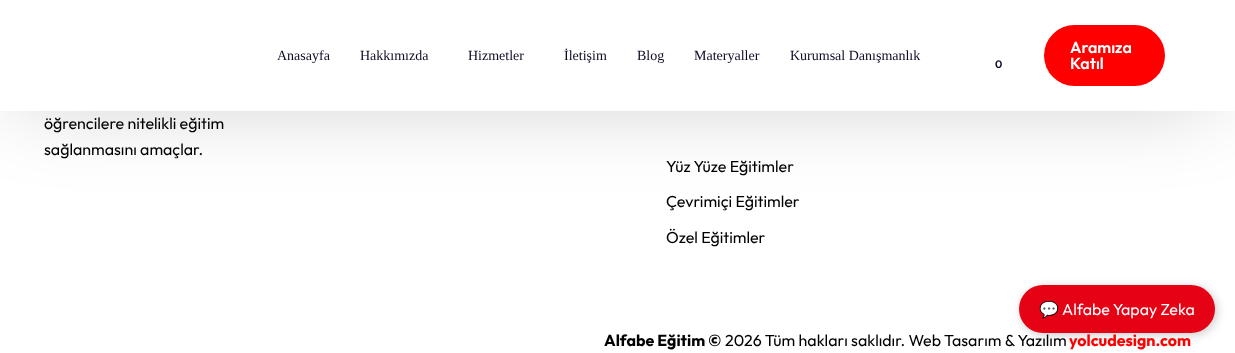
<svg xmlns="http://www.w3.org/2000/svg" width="1235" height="353">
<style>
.a{font:14px Liberation Serif;fill:#0e0a23}
.b{font:600 11px Outfit;fill:#0e0a23}
.c{font:600 16px Outfit;fill:#fff}
.d{font:16px Outfit;fill:#000}
.e{font:bold 16px Outfit;fill:#000}
.f{font:bold 16px Outfit;fill:#f00}
.g{font:16px Noto Color Emoji;fill:#fff}
.h{font:16px Outfit;fill:#fff}
</style>
<rect width="100%" height="100%" fill="#fff"/>
<path fill="#00000040" filter="blur(45px)" d="M18 23h1195v71H18z"/>
<path fill="#fff" d="M0 0h1235v111H0z"/>
<rect fill="#f00" x="1044" y="25" width="121" height="61" rx="30.5"/>
<rect fill="#00000033" filter="blur(5px)" x="1021" y="287" width="196" height="48" rx="24"/>
<rect fill="#e60215" x="1019" y="285" width="196" height="48" rx="24"/>
<text class="a" x="277" y="60">Anasayfa</text>
<text class="a" x="360" y="60">Hakkımızda</text>
<text class="a" x="468" y="60">Hizmetler</text>
<text class="a" x="564" y="60">İletişim</text>
<text class="a" x="637" y="60">Blog</text>
<text class="a" x="694" y="60">Materyaller</text>
<text class="a" x="790" y="60">Kurumsal Danışmanlık</text>
<text class="b" x="995" y="68">0</text>
<text class="c" x="1070" y="53">Aramıza</text>
<text class="c" x="1070" y="69">Katıl</text>
<text class="d" x="44" y="129">öğrencilere nitelikli eğitim</text>
<text class="d" x="44" y="155">sağlanmasını amaçlar.</text>
<text class="d" x="666" y="172">Yüz Yüze Eğitimler</text>
<text class="d" x="666" y="207">Çevrimiçi Eğitimler</text>
<text class="d" x="666" y="243">Özel Eğitimler</text>
<text class="e" x="604" y="346">Alfabe Eğitim ©</text>
<text class="d" x="725" y="346">2026 Tüm hakları saklıdır. Web Tasarım &amp; Yazılım</text>
<text class="f" x="1069" y="346">yolcudesign.com</text>
<text class="g" x="1039" y="315">💬</text>
<text class="h" x="1062" y="315">Alfabe Yapay Zeka</text>
</svg>
